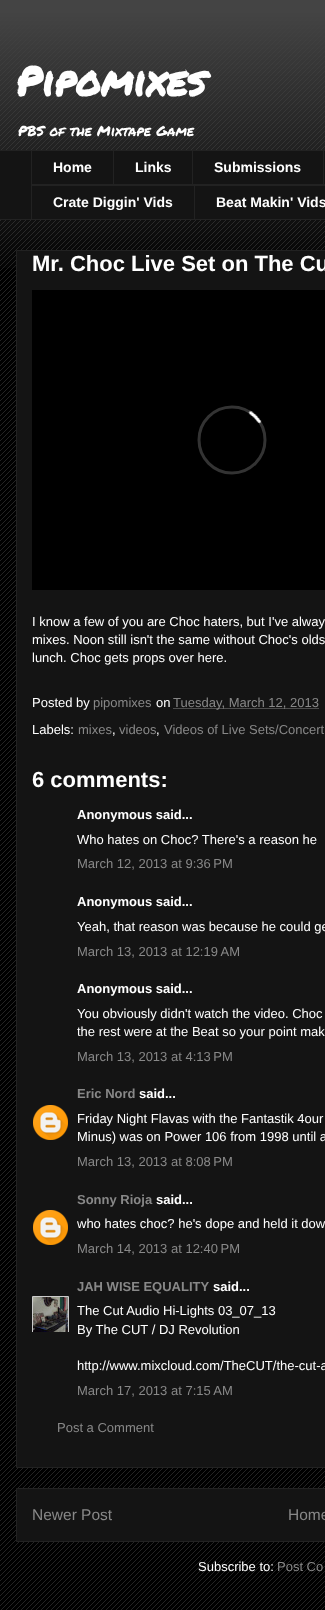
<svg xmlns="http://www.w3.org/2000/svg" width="325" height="1610">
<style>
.a{font:bold 40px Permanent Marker;fill:#fff}
.b{font:14px Permanent Marker;fill:#fff}
.c{font:bold 14px Liberation Sans;fill:#fff}
.d{font:bold 22px Liberation Sans;fill:#fff}
.e{font:13px Liberation Sans;fill:#fff}
.f{font:13px Liberation Sans;fill:#888}
.g{font:bold 13px Liberation Sans;fill:#fff}
.h{font:bold 13px Liberation Sans;fill:#888}
.i{font:15.5px Liberation Sans;fill:#888}
</style>
<defs>
<clipPath id="clip1"><path d="M32 1296h37v36H32z"/></clipPath>
</defs>
<rect width="100%" height="100%" fill="#000"/>
<image href="1.png" x="0" y="13" width="325" height="1597"/>
<image href="2.png" x="0" y="0" width="325" height="268"/>
<path fill="#141414" d="M0 151h325v68H0z"/>
<path fill="#222" d="M0 150h325v1H0z"/>
<path fill="#222" d="M31 184h294v1H31z"/>
<path fill="#222" d="M31 150h1v35H31z"/>
<path fill="#222" d="M113 150h1v35H113z"/>
<path fill="#222" d="M192 150h1v35H192z"/>
<path fill="#222" d="M323 150h1v35H323z"/>
<path fill="#222" d="M31 185h294v1H31z"/>
<path fill="#222" d="M31 185h1v35H31z"/>
<path fill="#222" d="M194 185h1v35H194z"/>
<path fill="#222" d="M0 219h325v1H0z"/>
<path fill="#141414" stroke="#222" d="M16.5 250.5h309v1217H16.5z"/>
<image href="3.png" x="32" y="290" width="293" height="300"/>
<path fill="none" stroke="#888" stroke-dasharray="1 1" d="M173.5 708.5h146"/>
<image href="4.png" x="33" y="1105" width="35" height="35"/>
<image href="4.png" x="33" y="1210" width="35" height="35"/>
<g clip-path="url(#clip1)">
<path fill="none" stroke="#ccc" d="M32.5 1296.5h36v36H32.5z"/>
</g>
<image href="5.png" x="33" y="1297" width="35" height="35"/>
<path fill="#141414" stroke="#222" d="M16.5 1488.5h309v53H16.5z"/>
<text class="a" x="16" y="96">Pipomixes</text>
<text class="b" x="18" y="136">PBS of the Mixtape Game</text>
<text class="c" x="53" y="172">Home</text>
<text class="c" x="135" y="172">Links</text>
<text class="c" x="214" y="172">Submissions</text>
<text class="c" x="53" y="207">Crate Diggin' Vids</text>
<text class="c" x="216" y="207">Beat Makin' Vids</text>
<text class="d" x="32" y="271">Mr. Choc Live Set on The Cu</text>
<text class="e" x="32" y="626">I know a few of you are Choc haters, but I've alway</text>
<text class="e" x="32" y="644">mixes. Noon still isn't the same without Choc's olds</text>
<text class="e" x="32" y="662">lunch. Choc gets props over here.</text>
<text class="e" x="32" y="707">Posted by</text>
<text class="f" x="93" y="707">pipomixes</text>
<text class="e" x="156" y="707">on</text>
<text class="f" x="173" y="707">Tuesday, March 12, 2013</text>
<text class="e" x="32" y="734">Labels:</text>
<text class="f" x="78" y="734">mixes</text>
<text class="e" x="112" y="734">,</text>
<text class="f" x="119" y="734">videos</text>
<text class="e" x="156" y="734">,</text>
<text class="f" x="164" y="734">Videos of Live Sets/Concert</text>
<text class="d" x="32" y="787">6 comments:</text>
<text class="g" x="77" y="819">Anonymous said...</text>
<text class="e" x="77" y="844">Who hates on Choc? There's a reason he</text>
<text class="f" x="77" y="868">March 12, 2013 at 9:36 PM</text>
<text class="g" x="77" y="906">Anonymous said...</text>
<text class="e" x="77" y="931">Yeah, that reason was because he could ge</text>
<text class="f" x="77" y="956">March 13, 2013 at 12:19 AM</text>
<text class="g" x="77" y="993">Anonymous said...</text>
<text class="e" x="77" y="1018">You obviously didn't watch the video. Choc</text>
<text class="e" x="77" y="1036">the rest were at the Beat so your point mak</text>
<text class="f" x="77" y="1061">March 13, 2013 at 4:13 PM</text>
<text class="h" x="77" y="1098">Eric Nord</text>
<text class="g" x="139" y="1098">said...</text>
<text class="e" x="77" y="1123">Friday Night Flavas with the Fantastik 4our</text>
<text class="e" x="77" y="1141">Minus) was on Power 106 from 1998 until a</text>
<text class="f" x="77" y="1166">March 13, 2013 at 8:08 PM</text>
<text class="h" x="77" y="1204">Sonny Rioja</text>
<text class="g" x="156" y="1204">said...</text>
<text class="e" x="77" y="1228">who hates choc? he's dope and held it dow</text>
<text class="f" x="77" y="1253">March 14, 2013 at 12:40 PM</text>
<text class="h" x="77" y="1291">JAH WISE EQUALITY</text>
<text class="g" x="213" y="1291">said...</text>
<text class="e" x="77" y="1315">The Cut Audio Hi-Lights 03_07_13</text>
<text class="e" x="77" y="1334">By The CUT / DJ Revolution</text>
<text class="e" x="77" y="1370">http://www.mixcloud.com/TheCUT/the-cut-a</text>
<text class="f" x="77" y="1395">March 17, 2013 at 7:15 AM</text>
<text class="f" x="57" y="1432">Post a Comment</text>
<text class="i" x="32" y="1520">Newer Post</text>
<text class="i" x="288" y="1520">Home</text>
<text class="e" x="198" y="1571">Subscribe to:</text>
<text class="f" x="277" y="1571">Post Co</text>
</svg>
